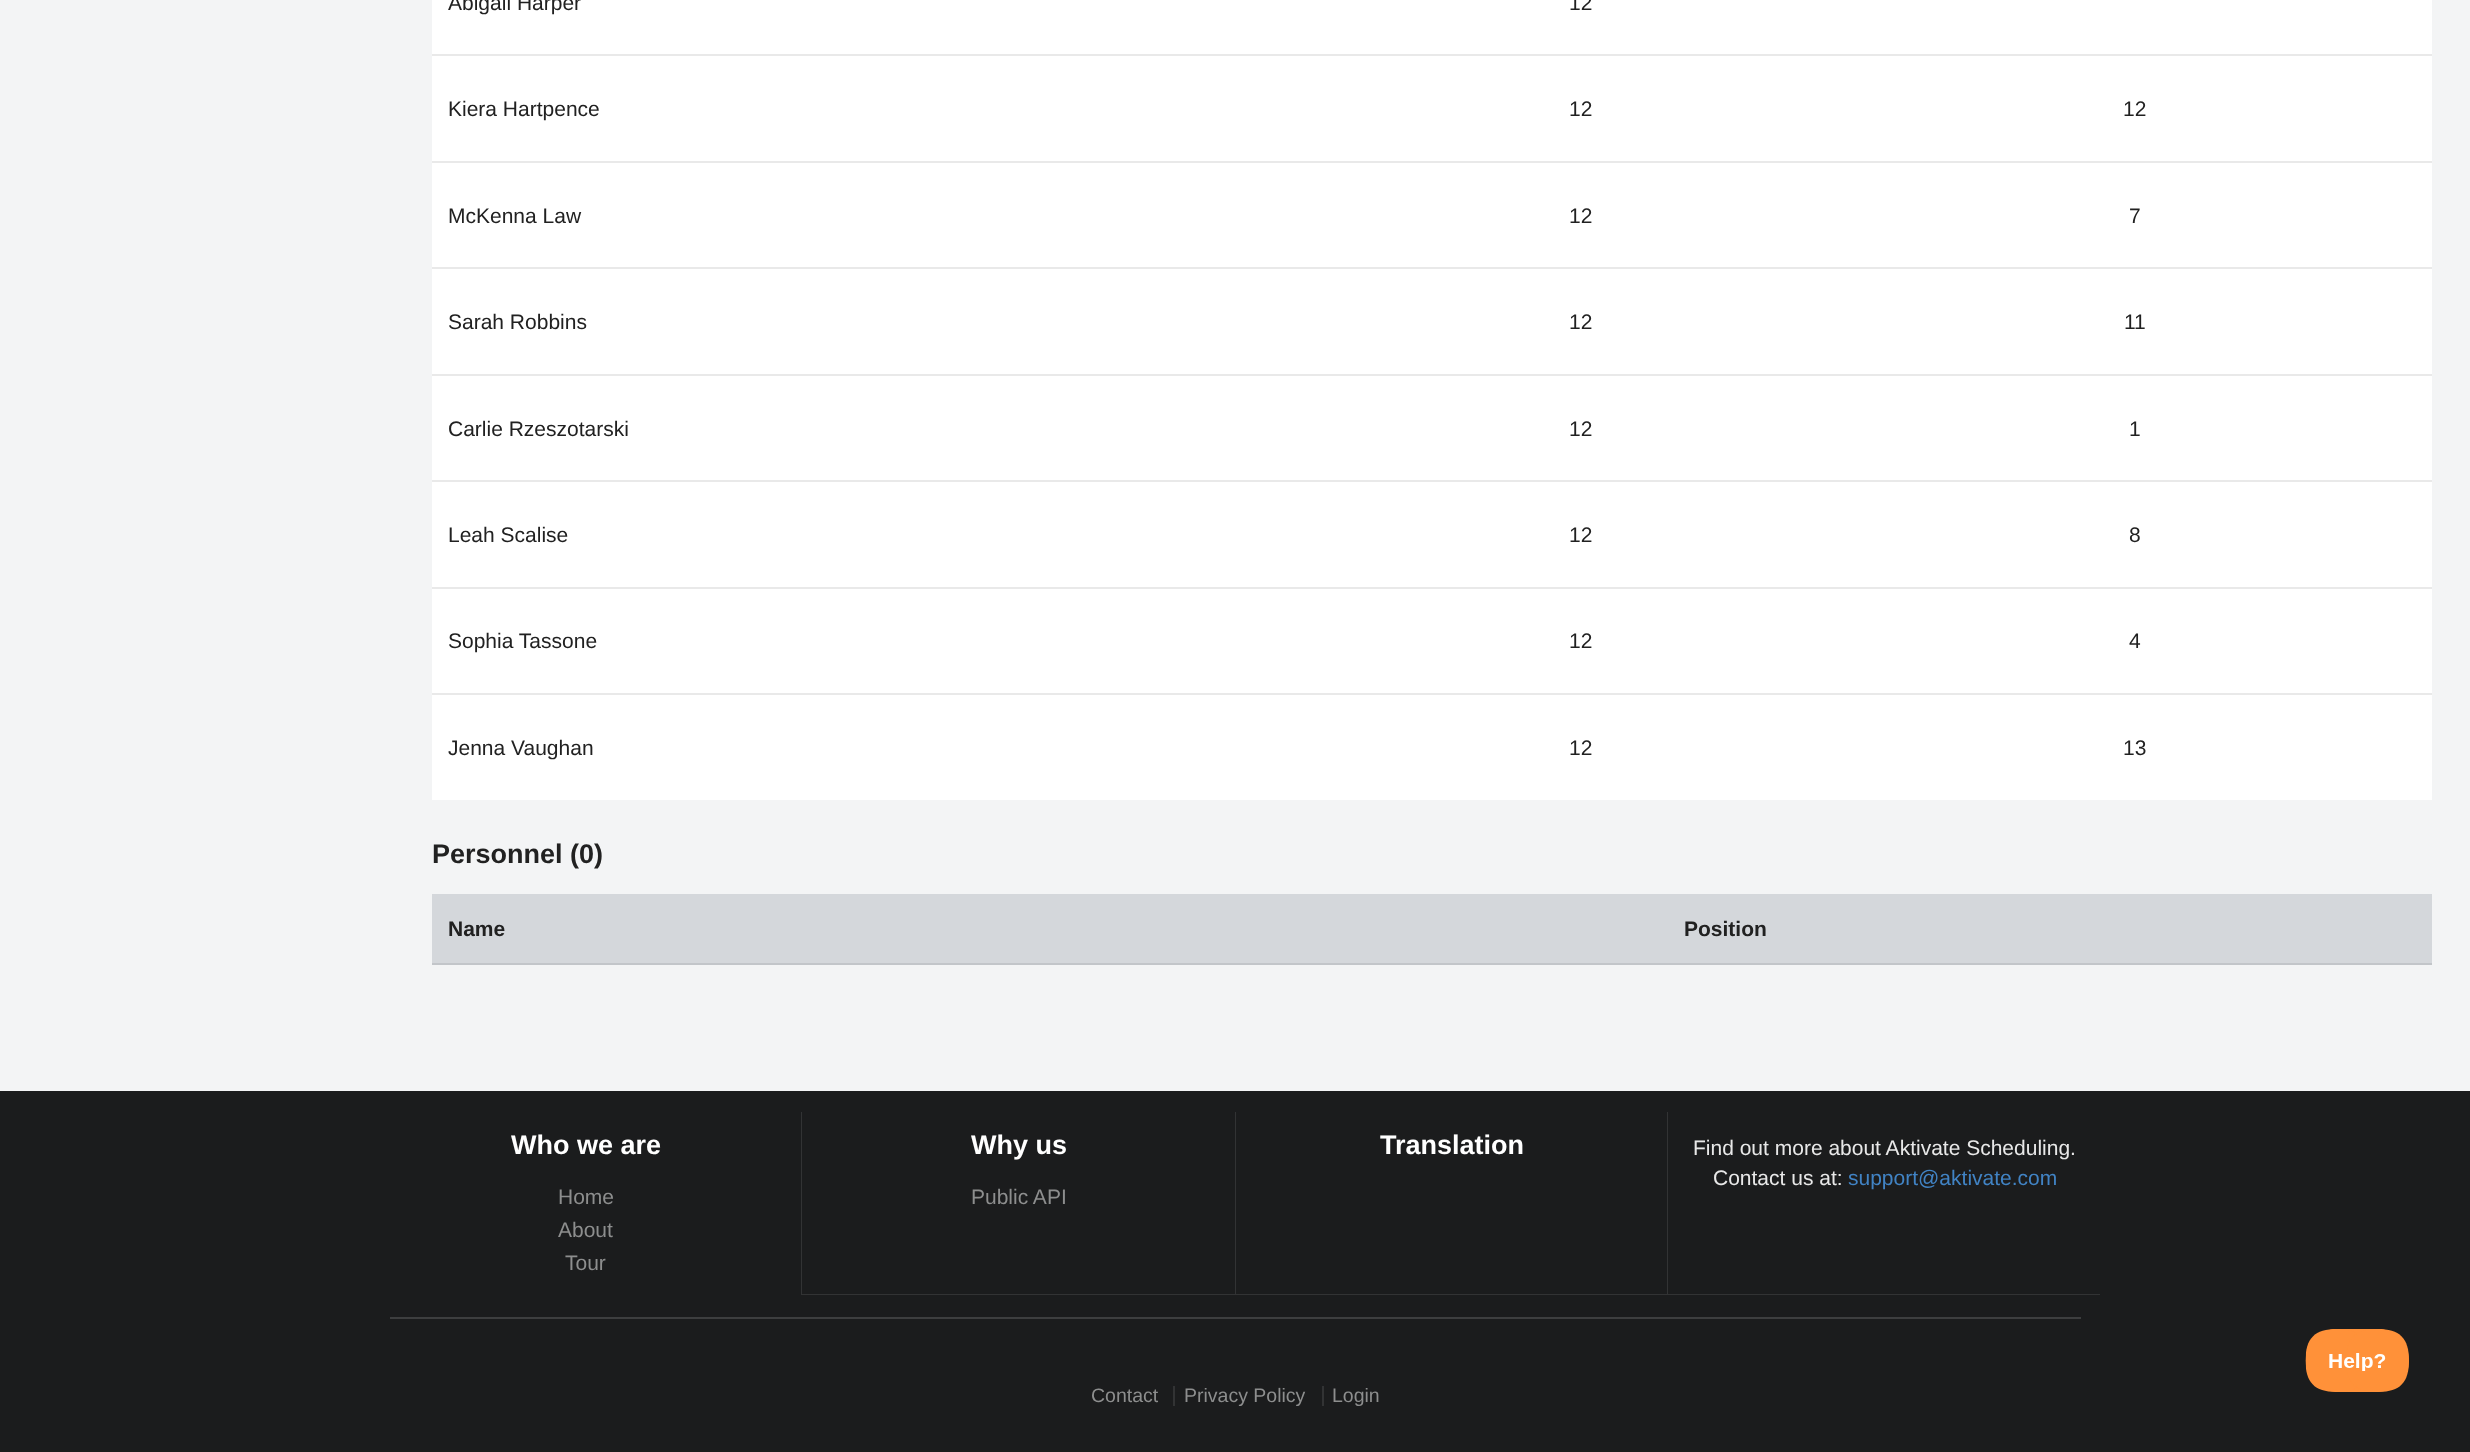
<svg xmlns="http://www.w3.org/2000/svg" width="2470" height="1452">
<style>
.a{font:21px Liberation Sans;fill:#212121}
.b{font:bold 27px Liberation Sans;fill:#212121}
.c{font:bold 21px Liberation Sans;fill:#212121}
.d{font:bold 27px Liberation Sans;fill:#fff}
.e{font:21px Liberation Sans;fill:#8d8e8e}
.f{font:21px Liberation Sans;fill:#e8e8e8}
.g{font:21px Liberation Sans;fill:#4183c4}
.h{font:19.5px Liberation Sans;fill:#8d8e8e}
</style>
<rect width="100%" height="100%" fill="#f3f4f5"/>
<path fill="#fff" d="M432 0h2000v800H432z"/>
<path fill="#e9e9e9" d="M432 54h2000v2H432z"/>
<path fill="#e9e9e9" d="M432 161h2000v2H432z"/>
<path fill="#e9e9e9" d="M432 267h2000v2H432z"/>
<path fill="#e9e9e9" d="M432 374h2000v2H432z"/>
<path fill="#e9e9e9" d="M432 480h2000v2H432z"/>
<path fill="#e9e9e9" d="M432 587h2000v2H432z"/>
<path fill="#e9e9e9" d="M432 693h2000v2H432z"/>
<path fill="#d4d7db" d="M432 894h2000v69H432z"/>
<path fill="#c2c5c9" d="M432 963h2000v2H432z"/>
<path fill="#1b1c1d" d="M0 1091h2470v361H0z"/>
<path fill="#323334" d="M801 1112v183h434v-1h-433v-182z"/>
<path fill="#323334" d="M1235 1112v183h432v-1h-431v-182z"/>
<path fill="#323334" d="M1667 1112v183h433v-1h-432v-182z"/>
<path fill="#3d3e3f" d="M390 1317h1691v2H390z"/>
<path fill="#323334" d="M1173 1386h2v20H1173z"/>
<path fill="#323334" d="M1322 1386h2v20H1322z"/>
<image href="1.png" x="2305" y="1329" width="104" height="63"/>
<text class="a" x="448" y="10">Abigail Harper</text>
<text class="a" x="1569" y="10">12</text>
<text class="a" x="448" y="116">Kiera Hartpence</text>
<text class="a" x="1569" y="116">12</text>
<text class="a" x="2123" y="116">12</text>
<text class="a" x="448" y="223">McKenna Law</text>
<text class="a" x="1569" y="223">12</text>
<text class="a" x="2129" y="223">7</text>
<text class="a" x="448" y="329">Sarah Robbins</text>
<text class="a" x="1569" y="329">12</text>
<text class="a" x="2124" y="329">11</text>
<text class="a" x="448" y="436">Carlie Rzeszotarski</text>
<text class="a" x="1569" y="436">12</text>
<text class="a" x="2129" y="436">1</text>
<text class="a" x="448" y="542">Leah Scalise</text>
<text class="a" x="1569" y="542">12</text>
<text class="a" x="2129" y="542">8</text>
<text class="a" x="448" y="648">Sophia Tassone</text>
<text class="a" x="1569" y="648">12</text>
<text class="a" x="2129" y="648">4</text>
<text class="a" x="448" y="755">Jenna Vaughan</text>
<text class="a" x="1569" y="755">12</text>
<text class="a" x="2123" y="755">13</text>
<text class="b" x="432" y="863">Personnel (0)</text>
<text class="c" x="448" y="936">Name</text>
<text class="c" x="1684" y="936">Position</text>
<text class="d" x="511" y="1154">Who we are</text>
<text class="e" x="558" y="1204">Home</text>
<text class="e" x="558" y="1237">About</text>
<text class="e" x="565" y="1270">Tour</text>
<text class="d" x="971" y="1154">Why us</text>
<text class="e" x="971" y="1204">Public API</text>
<text class="d" x="1380" y="1154">Translation</text>
<text class="f" x="1693" y="1155">Find out more about Aktivate Scheduling.</text>
<text class="f" x="1713" y="1185">Contact us at:</text>
<text class="g" x="1848" y="1185">support@aktivate.com</text>
<text class="h" x="1091" y="1402">Contact</text>
<text class="h" x="1184" y="1402">Privacy Policy</text>
<text class="h" x="1332" y="1402">Login</text>
</svg>
